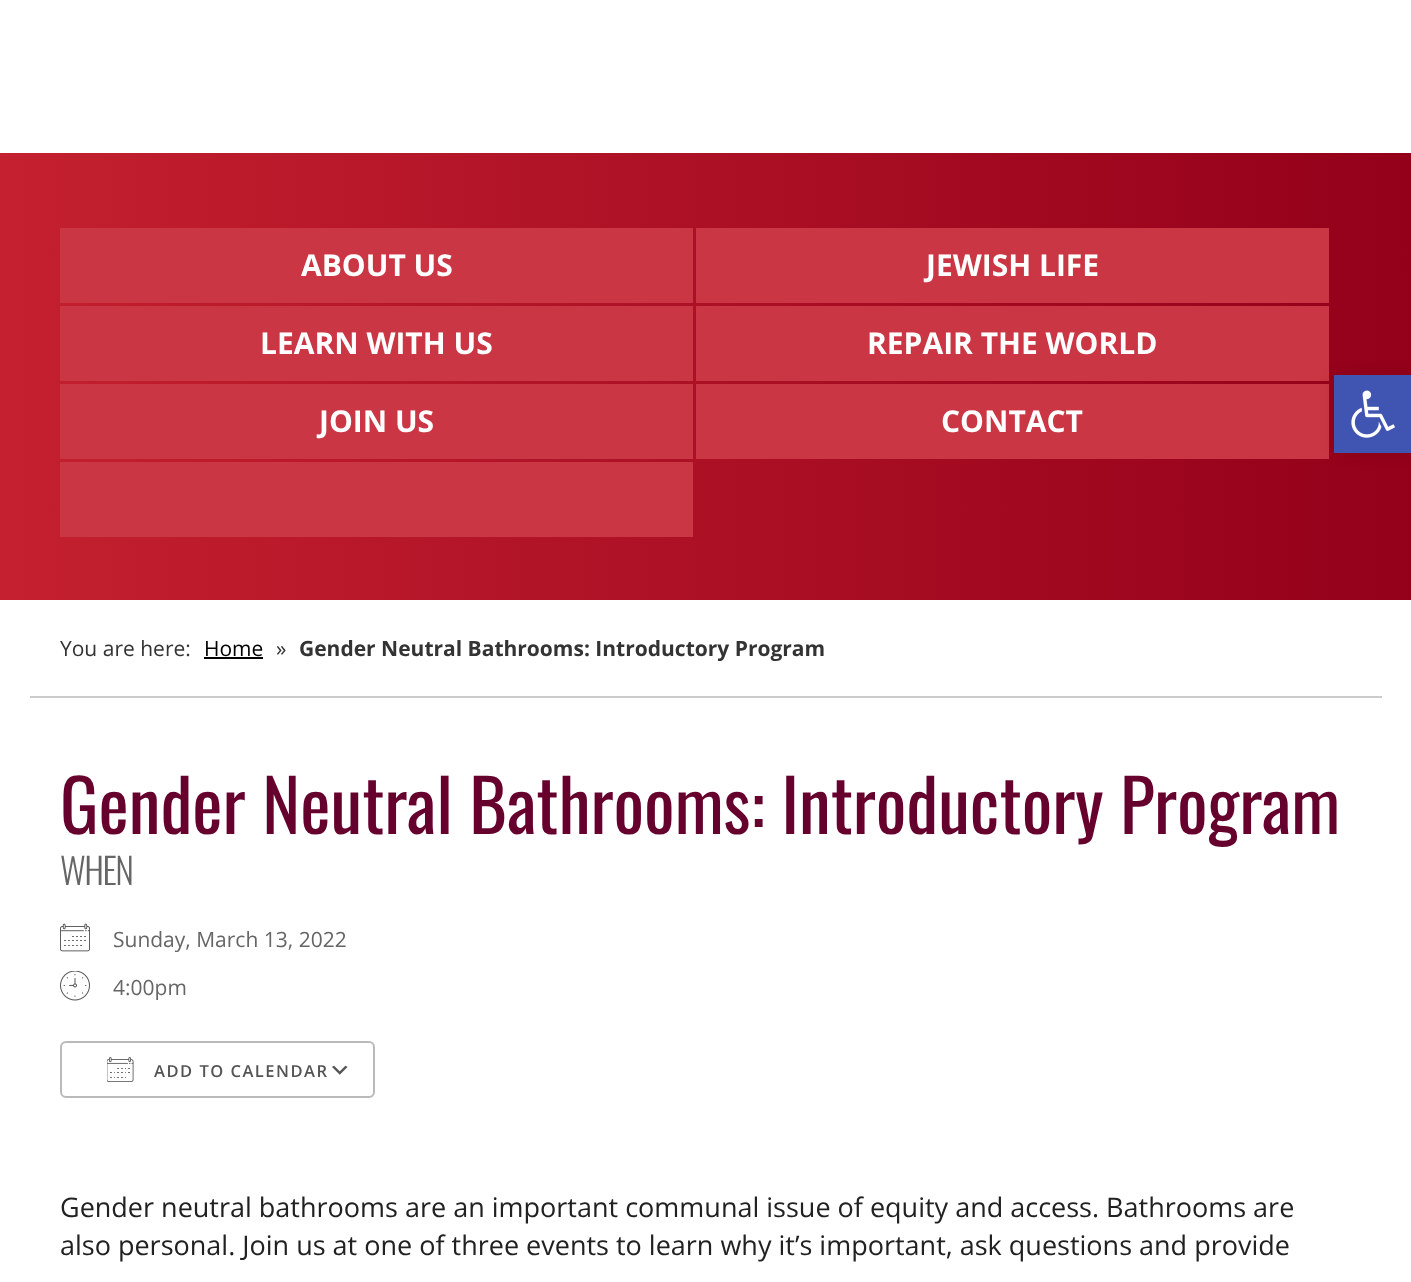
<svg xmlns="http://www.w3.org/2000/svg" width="1411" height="1282">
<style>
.a{font:bold 30px Open Sans;fill:#fff}
.b{font:21px Open Sans;fill:#333}
.c{font:21px Open Sans;fill:#000}
.d{font:bold 21px Open Sans;fill:#333}
.e{font:72px Oswald;fill:#66012d}
.f{font:300 36px Oswald;letter-spacing:-1.5px;fill:#666}
.g{font:21px Open Sans;fill:#666}
.h{font:600 16.5px Open Sans;letter-spacing:1.5px;fill:#545454}
.i{font:27px Open Sans;fill:#212121}
</style>
<defs>
<linearGradient id="g1" gradientUnits="userSpaceOnUse" x1="0" y1="377" x2="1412" y2="376"><stop offset="0" stop-color="#c4202f"/><stop offset="1" stop-color="#94001a"/></linearGradient>
</defs>
<rect width="100%" height="100%" fill="#fff"/>
<path fill="url(#g1)" d="M0 153h1411v447H0z"/>
<path fill="#ca3644" d="M60 228h633v75H60z"/>
<path fill="#ca3644" d="M696 228h633v75H696z"/>
<path fill="#ca3644" d="M60 306h633v75H60z"/>
<path fill="#ca3644" d="M696 306h633v75H696z"/>
<path fill="#ca3644" d="M60 384h633v75H60z"/>
<path fill="#ca3644" d="M696 384h633v75H696z"/>
<path fill="#ca3644" d="M60 462h633v75H60z"/>
<path fill="#0000001a" filter="blur(7.5px)" d="M1334 375h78v78H1334z"/>
<path fill="#4054b2" d="M1334 375h77v78H1334z"/>
<image href="1.png" x="1351" y="390" width="44" height="48"/>
<path fill="#ccc" d="M30 696h1352v2H30z"/>
<path fill="#000" d="M204 657h59v2H204z"/>
<image href="2.png" x="60" y="923" width="30" height="29"/>
<image href="3.png" x="60" y="971" width="30" height="30"/>
<image href="4.png" x="332" y="1065" width="16" height="10"/>
<rect fill="none" stroke="#bababa" stroke-width="2" x="61" y="1042" width="313" height="55" rx="5"/>
<image href="5.png" x="107" y="1057" width="27" height="25"/>
<text class="a" x="301" y="276">ABOUT US</text>
<text class="a" x="926" y="276">JEWISH LIFE</text>
<text class="a" x="260" y="354">LEARN WITH US</text>
<text class="a" x="867" y="354">REPAIR THE WORLD</text>
<text class="a" x="319" y="432">JOIN US</text>
<text class="a" x="941" y="432">CONTACT</text>
<text class="b" x="60" y="656">You are here:</text>
<text class="c" x="204" y="656">Home</text>
<text class="b" x="276" y="656">»</text>
<text class="d" x="299" y="656">Gender Neutral Bathrooms: Introductory Program</text>
<text class="e" x="60" y="834">Gender Neutral Bathrooms: Introductory Program</text>
<text class="f" x="60" y="885">WHEN</text>
<text class="g" x="113" y="947">Sunday, March 13, 2022</text>
<text class="g" x="113" y="995">4:00pm</text>
<text class="h" x="154" y="1077">ADD TO CALENDAR</text>
<text class="i" x="60" y="1217">Gender neutral bathrooms are an important communal issue of equity and access. Bathrooms are</text>
<text class="i" x="60" y="1255">also personal. Join us at one of three events to learn why it’s important, ask questions and provide</text>
</svg>
